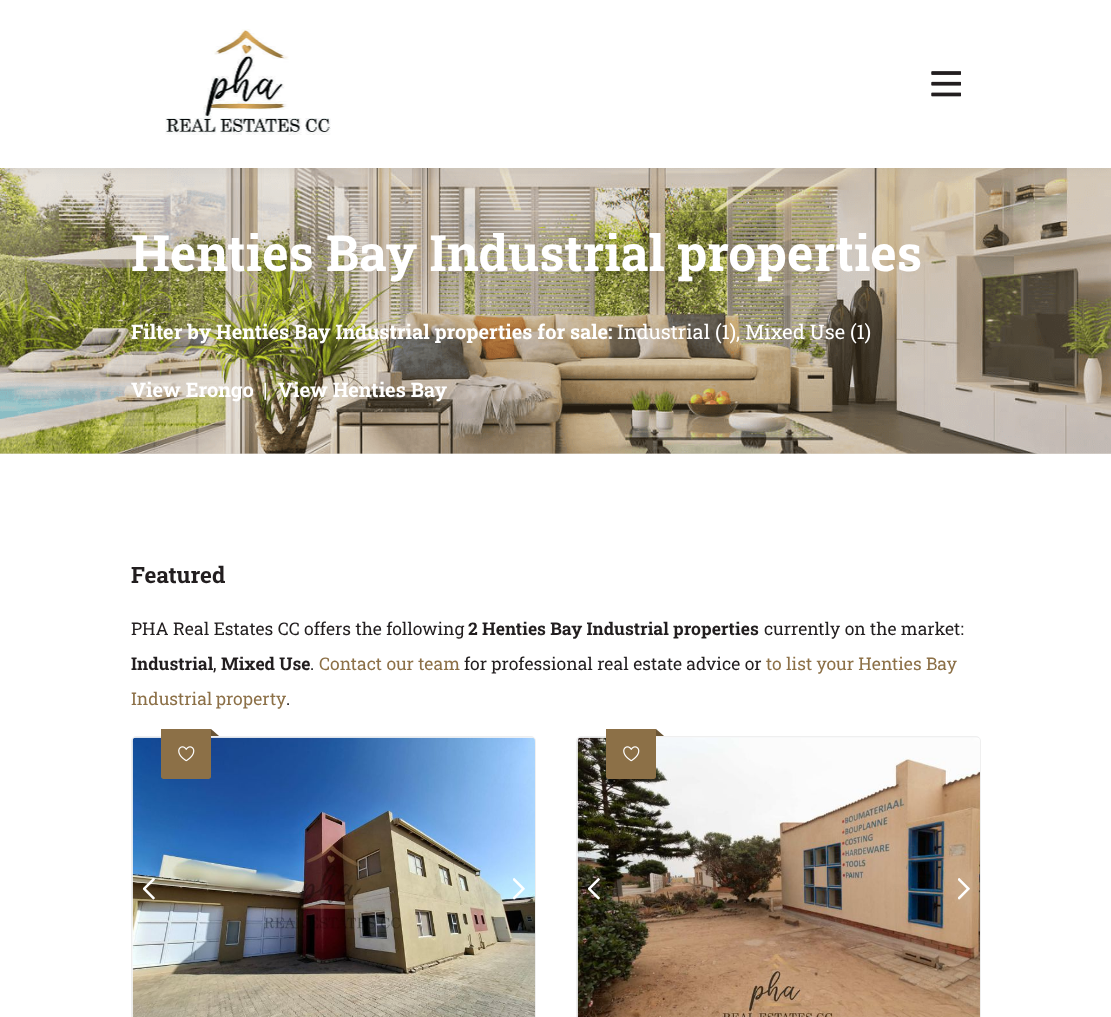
<svg xmlns="http://www.w3.org/2000/svg" width="1111" height="1017">
<style>
.a{font:bold 50px Roboto Slab;fill:#fff}
.b{font:bold 20px Roboto Slab;fill:#fff}
.c{font:20px Roboto Slab;fill:#fff}
.d{font:bold 22.5px Roboto Slab;fill:#221e1f}
.e{font:17.5px Roboto Slab;fill:#221e1f}
.f{font:bold 17.5px Roboto Slab;fill:#221e1f}
.g{font:17.5px Roboto Slab;fill:#8c7047}
</style>
<rect width="100%" height="100%" fill="#e1dcd5"/>
<image href="3.png" x="0" y="168" width="1111" height="286"/>
<path fill="#32323214" filter="blur(5px)" d="M0 3h1111v167H0z"/>
<path fill="#fff" d="M0 0h1111v168H0z"/>
<image href="1.png" x="165" y="29" width="166" height="106"/>
<image href="2.png" x="931" y="71" width="30" height="26"/>
<path fill="#fff" d="M0 454h1111v563H0z"/>
<rect fill="#f6f7f9" stroke="#efefef" x="131.5" y="736.5" width="404" height="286" rx="4.5"/>
<image href="5.png" x="132" y="737" width="403" height="280"/>
<path fill="#8c7047" d="M161 729h50v47.5c0 1.5-1 2.5-2.5 2.5h-45c-1.5 0-2.5-1-2.5-2.5z"/>
<path fill="#6a5536" d="M219 736h-8v-7z"/>
<image href="4.png" x="178" y="746" width="17" height="16"/>
<image href="6.png" x="143" y="878" width="12" height="22"/>
<image href="7.png" x="513" y="878" width="12" height="22"/>
<rect fill="#f6f7f9" stroke="#efefef" x="576.5" y="736.5" width="404" height="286" rx="4.5"/>
<image href="8.png" x="577" y="737" width="403" height="280"/>
<path fill="#8c7047" d="M606 729h50v47.5c0 1.5-1 2.5-2.5 2.5h-45c-1.5 0-2.5-1-2.5-2.5z"/>
<path fill="#6a5536" d="M664 736h-8v-7z"/>
<image href="4.png" x="623" y="746" width="17" height="16"/>
<image href="9.png" x="588" y="878" width="12" height="22"/>
<image href="10.png" x="958" y="878" width="12" height="22"/>
<text class="a" x="131" y="271">Henties Bay Industrial properties</text>
<text class="b" x="131" y="339">Filter by Henties Bay Industrial properties for sale:</text>
<text class="c" x="617" y="339">Industrial (1), Mixed Use (1)</text>
<text class="b" x="131" y="397">View Erongo</text>
<text class="c" x="263" y="397">|</text>
<text class="b" x="278" y="397">View Henties Bay</text>
<text class="d" x="131" y="583">Featured</text>
<text class="e" x="131" y="635">PHA Real Estates CC offers the following</text>
<text class="f" x="468" y="635">2 Henties Bay Industrial properties</text>
<text class="e" x="764" y="635">currently on the market:</text>
<text class="f" x="131" y="670">Industrial</text>
<text class="e" x="213" y="670">,</text>
<text class="f" x="221" y="670">Mixed Use</text>
<text class="e" x="310" y="670">.</text>
<text class="g" x="319" y="670">Contact our team</text>
<text class="e" x="464" y="670">for professional real estate advice or</text>
<text class="g" x="766" y="670">to list your Henties Bay</text>
<text class="g" x="131" y="705" word-spacing="-1">Industrial property</text>
<text class="e" x="286" y="705">.</text>
</svg>
